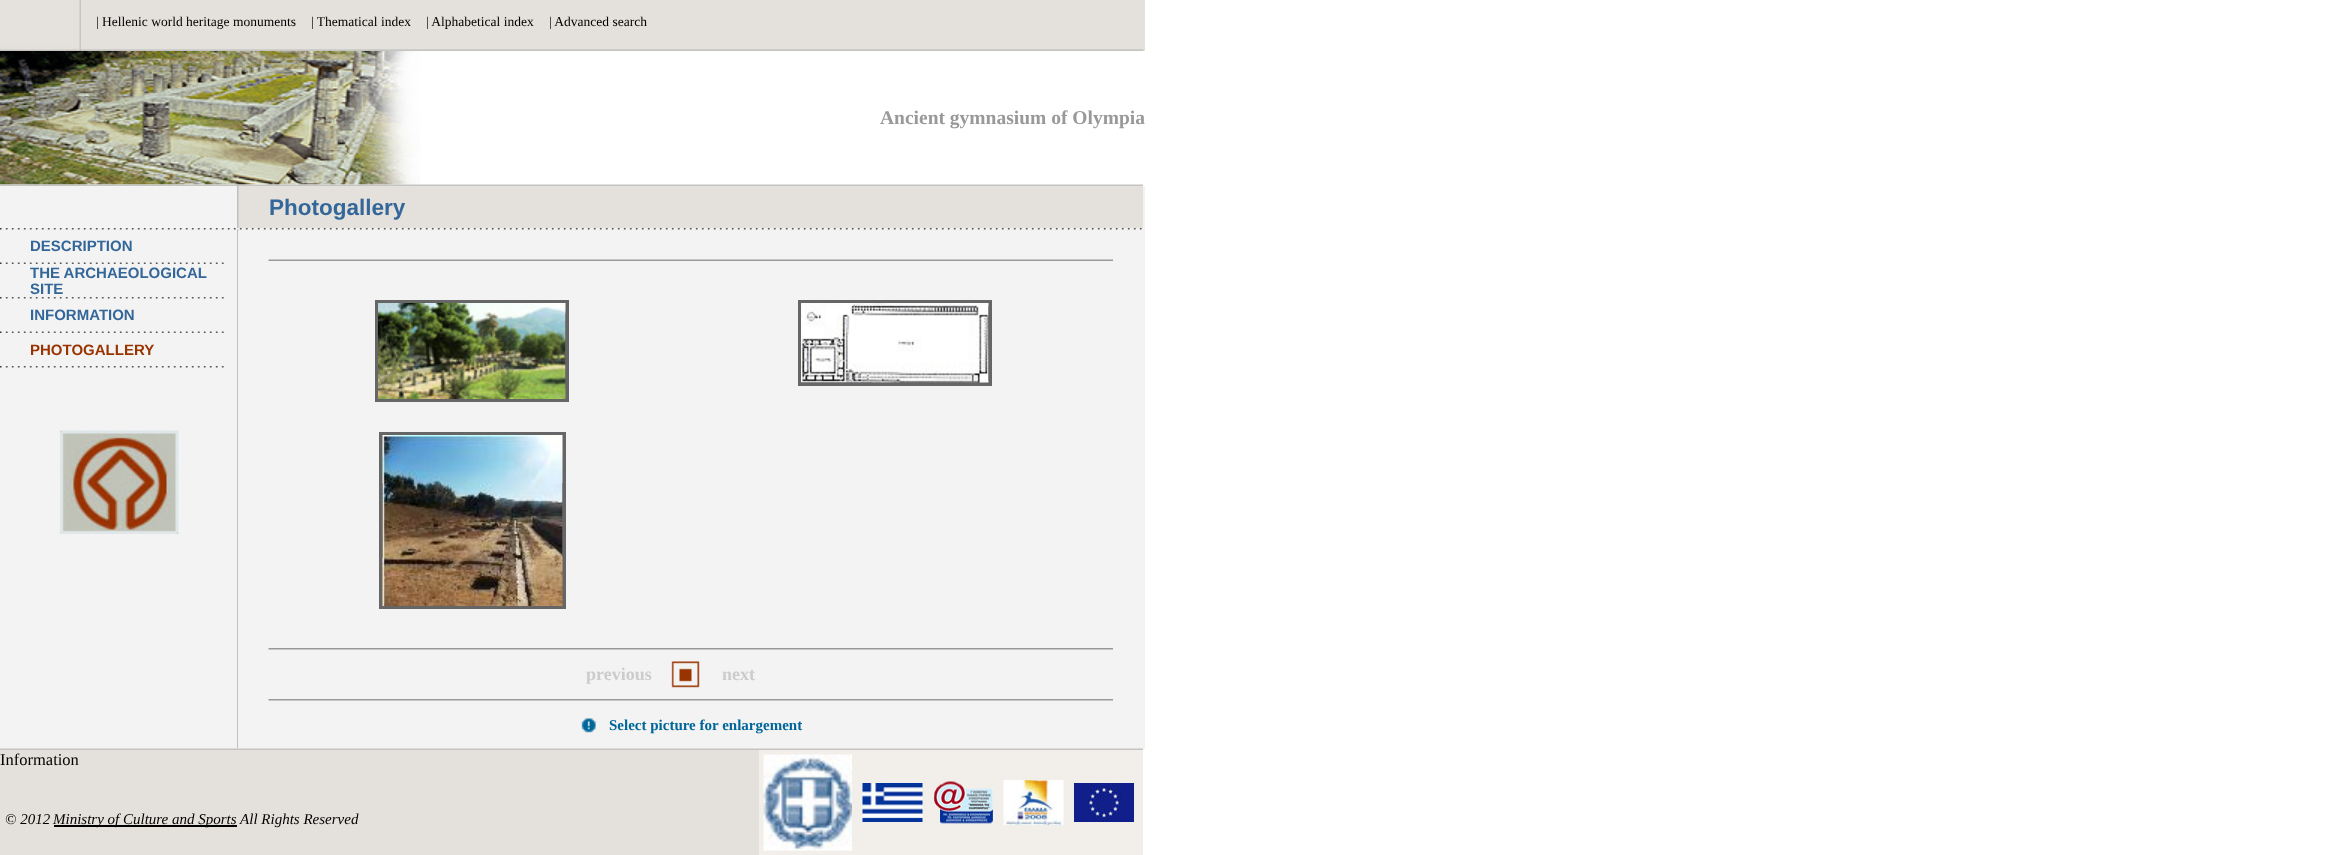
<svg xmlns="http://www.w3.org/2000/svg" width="2326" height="855">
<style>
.a{font:13.5px Liberation Serif;fill:#000}
.b{font:bold 19.5px Liberation Serif;fill:#999}
.c{font:bold 22.5px Liberation Sans;fill:#369}
.d{font:bold 15px Liberation Sans;fill:#369}
.e{font:bold 15px Liberation Sans;fill:#930}
.f{font:bold 18px Liberation Serif;fill:#ccc}
.g{font:bold 15px Liberation Serif;fill:#069}
.h{font:16.5px Liberation Serif;fill:#000}
.i{font:italic 15px Liberation Serif;fill:#000}
</style>
<rect width="100%" height="100%" fill="#fff"/>
<image href="1.png" x="0" y="0" width="81" height="51"/>
<path fill="#e4e1dc" d="M81 0h1064v50H81z"/>
<image href="2.png" x="81" y="49" width="1064" height="2"/>
<image href="3.png" x="81" y="49" width="1062" height="2"/>
<image href="4.png" x="0" y="51" width="420" height="134"/>
<image href="5.png" x="0" y="184" width="1143" height="2"/>
<path fill="#f3f2ee" d="M0 186h1145v563H0z"/>
<path fill="#f3f3f3" d="M0 186h237v42H0z"/>
<image href="6.png" x="237" y="186" width="1" height="42"/>
<path fill="#d2d0cc" d="M238 186h1v42H238z"/>
<path fill="#e4e1dc" d="M239 186h904v42H239z"/>
<path fill="#f3f3f3" d="M0 228h1143v1H0z"/>
<image href="11.png" x="237" y="229" width="1" height="520"/>
<path fill="#f3f3f3" d="M238 229h905v520H238z"/>
<image href="7.png" x="0" y="228" width="1142" height="2"/>
<path fill="#f3f3f3" d="M0 230h237v518H0z"/>
<image href="8.png" x="0" y="262" width="224" height="2"/>
<image href="9.png" x="0" y="297" width="224" height="2"/>
<image href="8.png" x="0" y="331" width="224" height="2"/>
<image href="9.png" x="0" y="366" width="224" height="2"/>
<image href="10.png" x="60" y="430" width="119" height="104"/>
<image href="12.png" x="237" y="229" width="2" height="2"/>
<image href="13.png" x="268" y="259" width="845" height="2"/>
<path fill="#666" d="M375 300h194v102H375z"/>
<image href="14.png" x="378" y="303" width="188" height="96"/>
<image href="15.png" x="565" y="313" width="1" height="76"/>
<path fill="#666" d="M379 432h187v177H379z"/>
<image href="16.png" x="382" y="435" width="181" height="171"/>
<path fill="#66666680" d="M382 483h1v75H382z"/>
<path fill="#66666680" d="M562 483h1v75H562z"/>
<path fill="#666" d="M798 300h194v86H798z"/>
<image href="17.png" x="801" y="303" width="188" height="80"/>
<path fill="#66666680" d="M988 306h1v75H988z"/>
<path fill="#66666680" d="M801 382h72v1H801z"/>
<image href="18.png" x="268" y="648" width="845" height="2"/>
<image href="19.png" x="671" y="661" width="29" height="27"/>
<image href="18.png" x="268" y="699" width="845" height="2"/>
<image href="20.png" x="581" y="718" width="15" height="15"/>
<image href="21.png" x="0" y="748" width="1143" height="2"/>
<path fill="#e4e1dc" d="M0 750h759v105H0z"/>
<path fill="#f2efea" d="M759 750h384v105H759z"/>
<image href="22.png" x="763" y="754" width="89" height="97"/>
<image href="23.png" x="862" y="783" width="61" height="39"/>
<image href="24.png" x="933" y="781" width="60" height="43"/>
<image href="25.png" x="1003" y="780" width="61" height="45"/>
<image href="26.png" x="1074" y="783" width="60" height="39"/>
<path fill="#000" d="M54 825h183v2H54z"/>
<text class="a" x="96" y="26">| Hellenic world heritage monuments</text>
<text class="a" x="311" y="26">| Thematical index</text>
<text class="a" x="426" y="26">| Alphabetical index</text>
<text class="a" x="549" y="26">| Advanced search</text>
<text class="b" x="880" y="124">Ancient gymnasium of Olympia</text>
<text class="c" x="269" y="215">Photogallery</text>
<text class="d" x="30" y="251">DESCRIPTION</text>
<text class="d" x="30" y="278">THE ARCHAEOLOGICAL</text>
<text class="d" x="30" y="294">SITE</text>
<text class="d" x="30" y="320">INFORMATION</text>
<text class="e" x="30" y="355">PHOTOGALLERY</text>
<text class="f" x="586" y="680">previous</text>
<text class="f" x="722" y="680">next</text>
<text class="g" x="609" y="730">Select picture for enlargement</text>
<text class="h" x="0" y="765">Information</text>
<text class="i" x="5" y="824">© 2012</text>
<text class="i" x="53" y="824">Ministry of Culture and Sports All Rights Reserved</text>
</svg>
